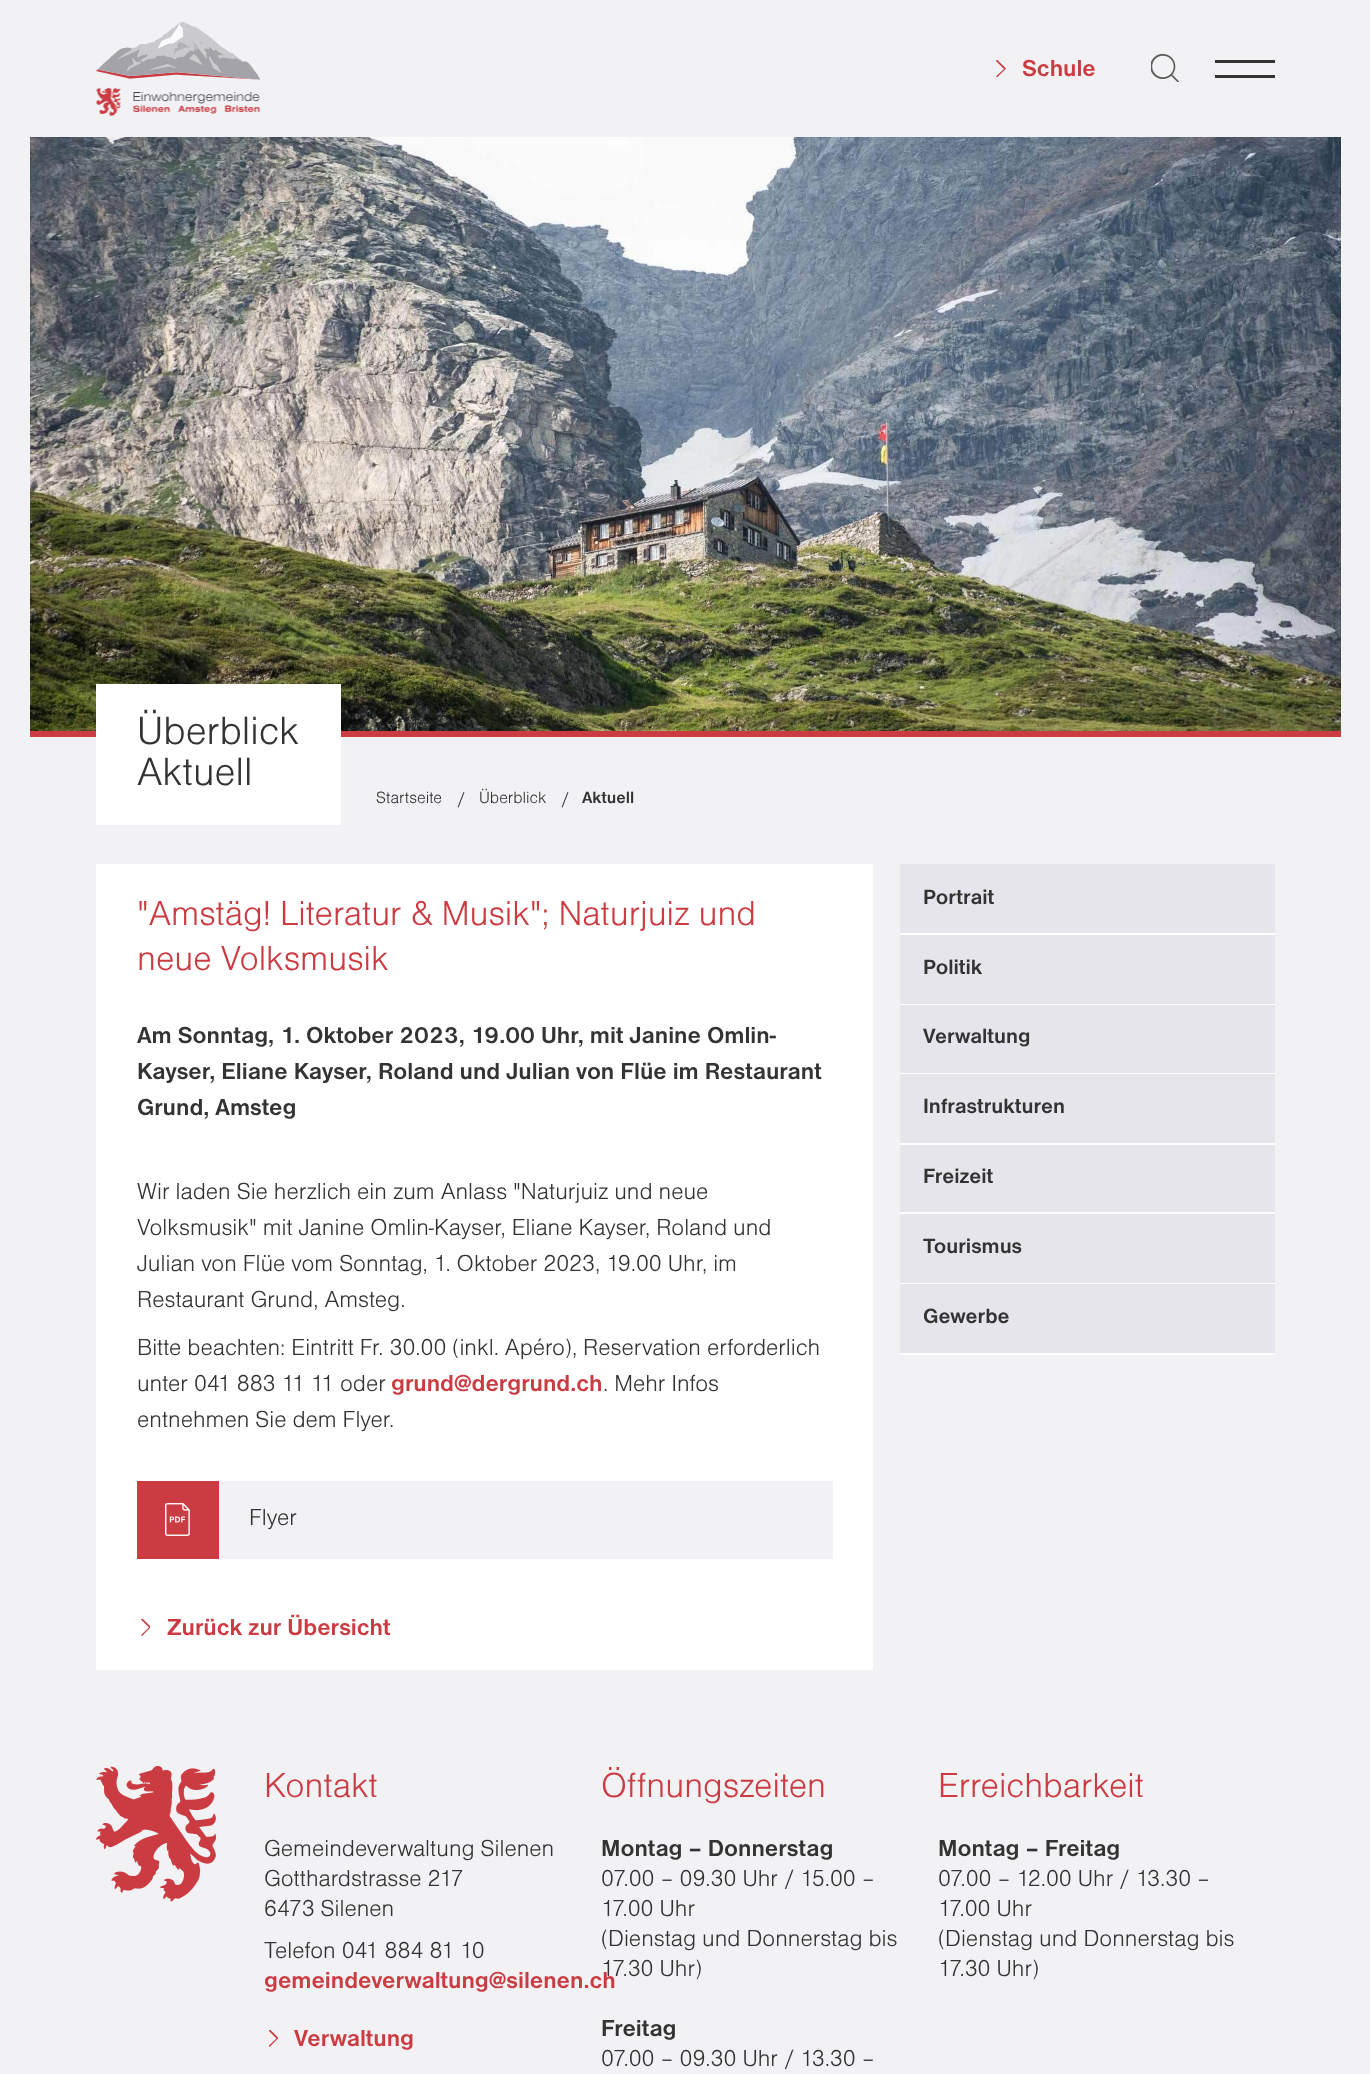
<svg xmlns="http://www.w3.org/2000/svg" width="1370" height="2074">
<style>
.a{font:bold 24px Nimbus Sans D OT;fill:#ca3c42}
.b{font:300 41px Nimbus Sans D OT;fill:#333}
.c{font:300 17px Nimbus Sans D OT;fill:#333}
.d{font:300 19px Nimbus Sans D OT;fill:#333}
.e{font:bold 17px Nimbus Sans D OT;fill:#333}
.f{font:300 36px Nimbus Sans D OT;fill:#ca3c42}
.g{font:bold 24px Nimbus Sans D OT;fill:#333}
.h{font:300 24px Nimbus Sans D OT;fill:#333}
.i{font:bold 21.5px Nimbus Sans D OT;fill:#333}
</style>
<defs>
<clipPath id="clip1"><path d="M996 60h10v17H996z"/></clipPath>
<clipPath id="clip2"><path d="M141 1619h9v17H141z"/></clipPath>
<clipPath id="clip3"><path d="M269 2030h9v17H269z"/></clipPath>
</defs>
<rect width="100%" height="100%" fill="#f2f2f5"/>
<image href="1.png" x="96" y="22" width="164" height="58"/>
<image href="2.png" x="96" y="88" width="164" height="28"/>
<g clip-path="url(#clip1)">
<path fill="#ca3c42" d="M996 61l1-1.5l9 9l-9 9l-1-1l8-7.5z"/>
</g>
<image href="3.png" x="1151" y="54" width="28" height="28"/>
<path fill="#333" d="M1215 60h60v3H1215z"/>
<path fill="#333" d="M1215 75h60v3H1215z"/>
<image href="4.png" x="30" y="137" width="1311" height="594"/>
<path fill="#ca3c42" d="M30 731h1311v6H30z"/>
<path fill="#fff" d="M96 684h245v141H96z"/>
<path fill="#fff" d="M96 864h777v806H96z"/>
<path fill="#f2f2f5" d="M219 1481h614v78H219z"/>
<path fill="#ca3c42" d="M137 1481h82v78H137z"/>
<image href="5.png" x="165" y="1503" width="25" height="33"/>
<g clip-path="url(#clip2)">
<path fill="#ca3c42" d="M141 1619.5l1-1.5l9 9l-9 9l-1-1l8-7.5z"/>
</g>
<path fill="#e5e5eb" d="M900 864h375v69H900z"/>
<path fill="#fff" d="M900 933h375v2H900z"/>
<path fill="#e5e5eb" d="M900 935h375v69H900z"/>
<path fill="#fff" d="M900 1004h375v1H900z"/>
<path fill="#e5e5eb" d="M900 1005h375v68H900z"/>
<path fill="#fff" d="M900 1073h375v1H900z"/>
<path fill="#e5e5eb" d="M900 1074h375v69H900z"/>
<path fill="#fff" d="M900 1143h375v2H900z"/>
<path fill="#e5e5eb" d="M900 1145h375v67H900z"/>
<path fill="#fff" d="M900 1212h375v2H900z"/>
<path fill="#e5e5eb" d="M900 1214h375v69H900z"/>
<path fill="#fff" d="M900 1283h375v1H900z"/>
<path fill="#e5e5eb" d="M900 1284h375v69H900z"/>
<path fill="#fff" d="M900 1353h375v2H900z"/>
<image href="6.png" x="96" y="1766" width="120" height="136"/>
<g clip-path="url(#clip3)">
<path fill="#ca3c42" d="M268.5 2030.5l1-1.5l9 9l-9 9l-1-1l8-7.5z"/>
</g>
<text class="a" x="1022" y="76">Schule</text>
<text class="b" x="137" y="744">Überblick</text>
<text class="b" x="137" y="785">Aktuell</text>
<text class="c" x="376" y="803">Startseite</text>
<text class="d" x="457" y="805">/</text>
<text class="c" x="479" y="803">Überblick</text>
<text class="d" x="561" y="805">/</text>
<text class="e" x="582" y="803">Aktuell</text>
<text class="f" x="137" y="925">"Amstäg! Literatur &amp; Musik"; Naturjuiz und</text>
<text class="f" x="137" y="970">neue Volksmusik</text>
<text class="g" x="137" y="1043">Am Sonntag, 1. Oktober 2023, 19.00 Uhr, mit Janine Omlin-</text>
<text class="g" x="137" y="1079">Kayser, Eliane Kayser, Roland und Julian von Flüe im Restaurant</text>
<text class="g" x="137" y="1115">Grund, Amsteg</text>
<text class="h" x="137" y="1199">Wir laden Sie herzlich ein zum Anlass "Naturjuiz und neue</text>
<text class="h" x="137" y="1235">Volksmusik" mit Janine Omlin-Kayser, Eliane Kayser, Roland und</text>
<text class="h" x="137" y="1271">Julian von Flüe vom Sonntag, 1. Oktober 2023, 19.00 Uhr, im</text>
<text class="h" x="137" y="1307">Restaurant Grund, Amsteg.</text>
<text class="h" x="137" y="1355">Bitte beachten: Eintritt Fr. 30.00 (inkl. Apéro), Reservation erforderlich</text>
<text class="h" x="137" y="1391">unter 041 883 11 11 oder</text>
<text class="a" x="391" y="1391">grund@dergrund.ch</text>
<text class="h" x="603" y="1391">. Mehr Infos</text>
<text class="h" x="137" y="1427">entnehmen Sie dem Flyer.</text>
<text class="h" x="249" y="1525">Flyer</text>
<text class="a" x="167" y="1635">Zurück zur Übersicht</text>
<text class="i" x="923" y="904">Portrait</text>
<text class="i" x="923" y="974">Politik</text>
<text class="i" x="923" y="1043">Verwaltung</text>
<text class="i" x="923" y="1113">Infrastrukturen</text>
<text class="i" x="923" y="1183">Freizeit</text>
<text class="i" x="923" y="1253">Tourismus</text>
<text class="i" x="923" y="1323">Gewerbe</text>
<text class="f" x="264" y="1797">Kontakt</text>
<text class="h" x="264" y="1856">Gemeindeverwaltung Silenen</text>
<text class="h" x="264" y="1886">Gotthardstrasse 217</text>
<text class="h" x="264" y="1916">6473 Silenen</text>
<text class="h" x="264" y="1958">Telefon 041 884 81 10</text>
<text class="a" x="264" y="1988">gemeindeverwaltung@silenen.ch</text>
<text class="a" x="294" y="2046">Verwaltung</text>
<text class="f" x="601" y="1797">Öffnungszeiten</text>
<text class="g" x="601" y="1856">Montag – Donnerstag</text>
<text class="h" x="601" y="1886">07.00 – 09.30 Uhr / 15.00 –</text>
<text class="h" x="601" y="1916">17.00 Uhr</text>
<text class="h" x="601" y="1946">(Dienstag und Donnerstag bis</text>
<text class="h" x="601" y="1976">17.30 Uhr)</text>
<text class="g" x="601" y="2036">Freitag</text>
<text class="h" x="601" y="2066">07.00 – 09.30 Uhr / 13.30 –</text>
<text class="f" x="938" y="1797">Erreichbarkeit</text>
<text class="g" x="938" y="1856">Montag – Freitag</text>
<text class="h" x="938" y="1886">07.00 – 12.00 Uhr / 13.30 –</text>
<text class="h" x="938" y="1916">17.00 Uhr</text>
<text class="h" x="938" y="1946">(Dienstag und Donnerstag bis</text>
<text class="h" x="938" y="1976">17.30 Uhr)</text>
</svg>
